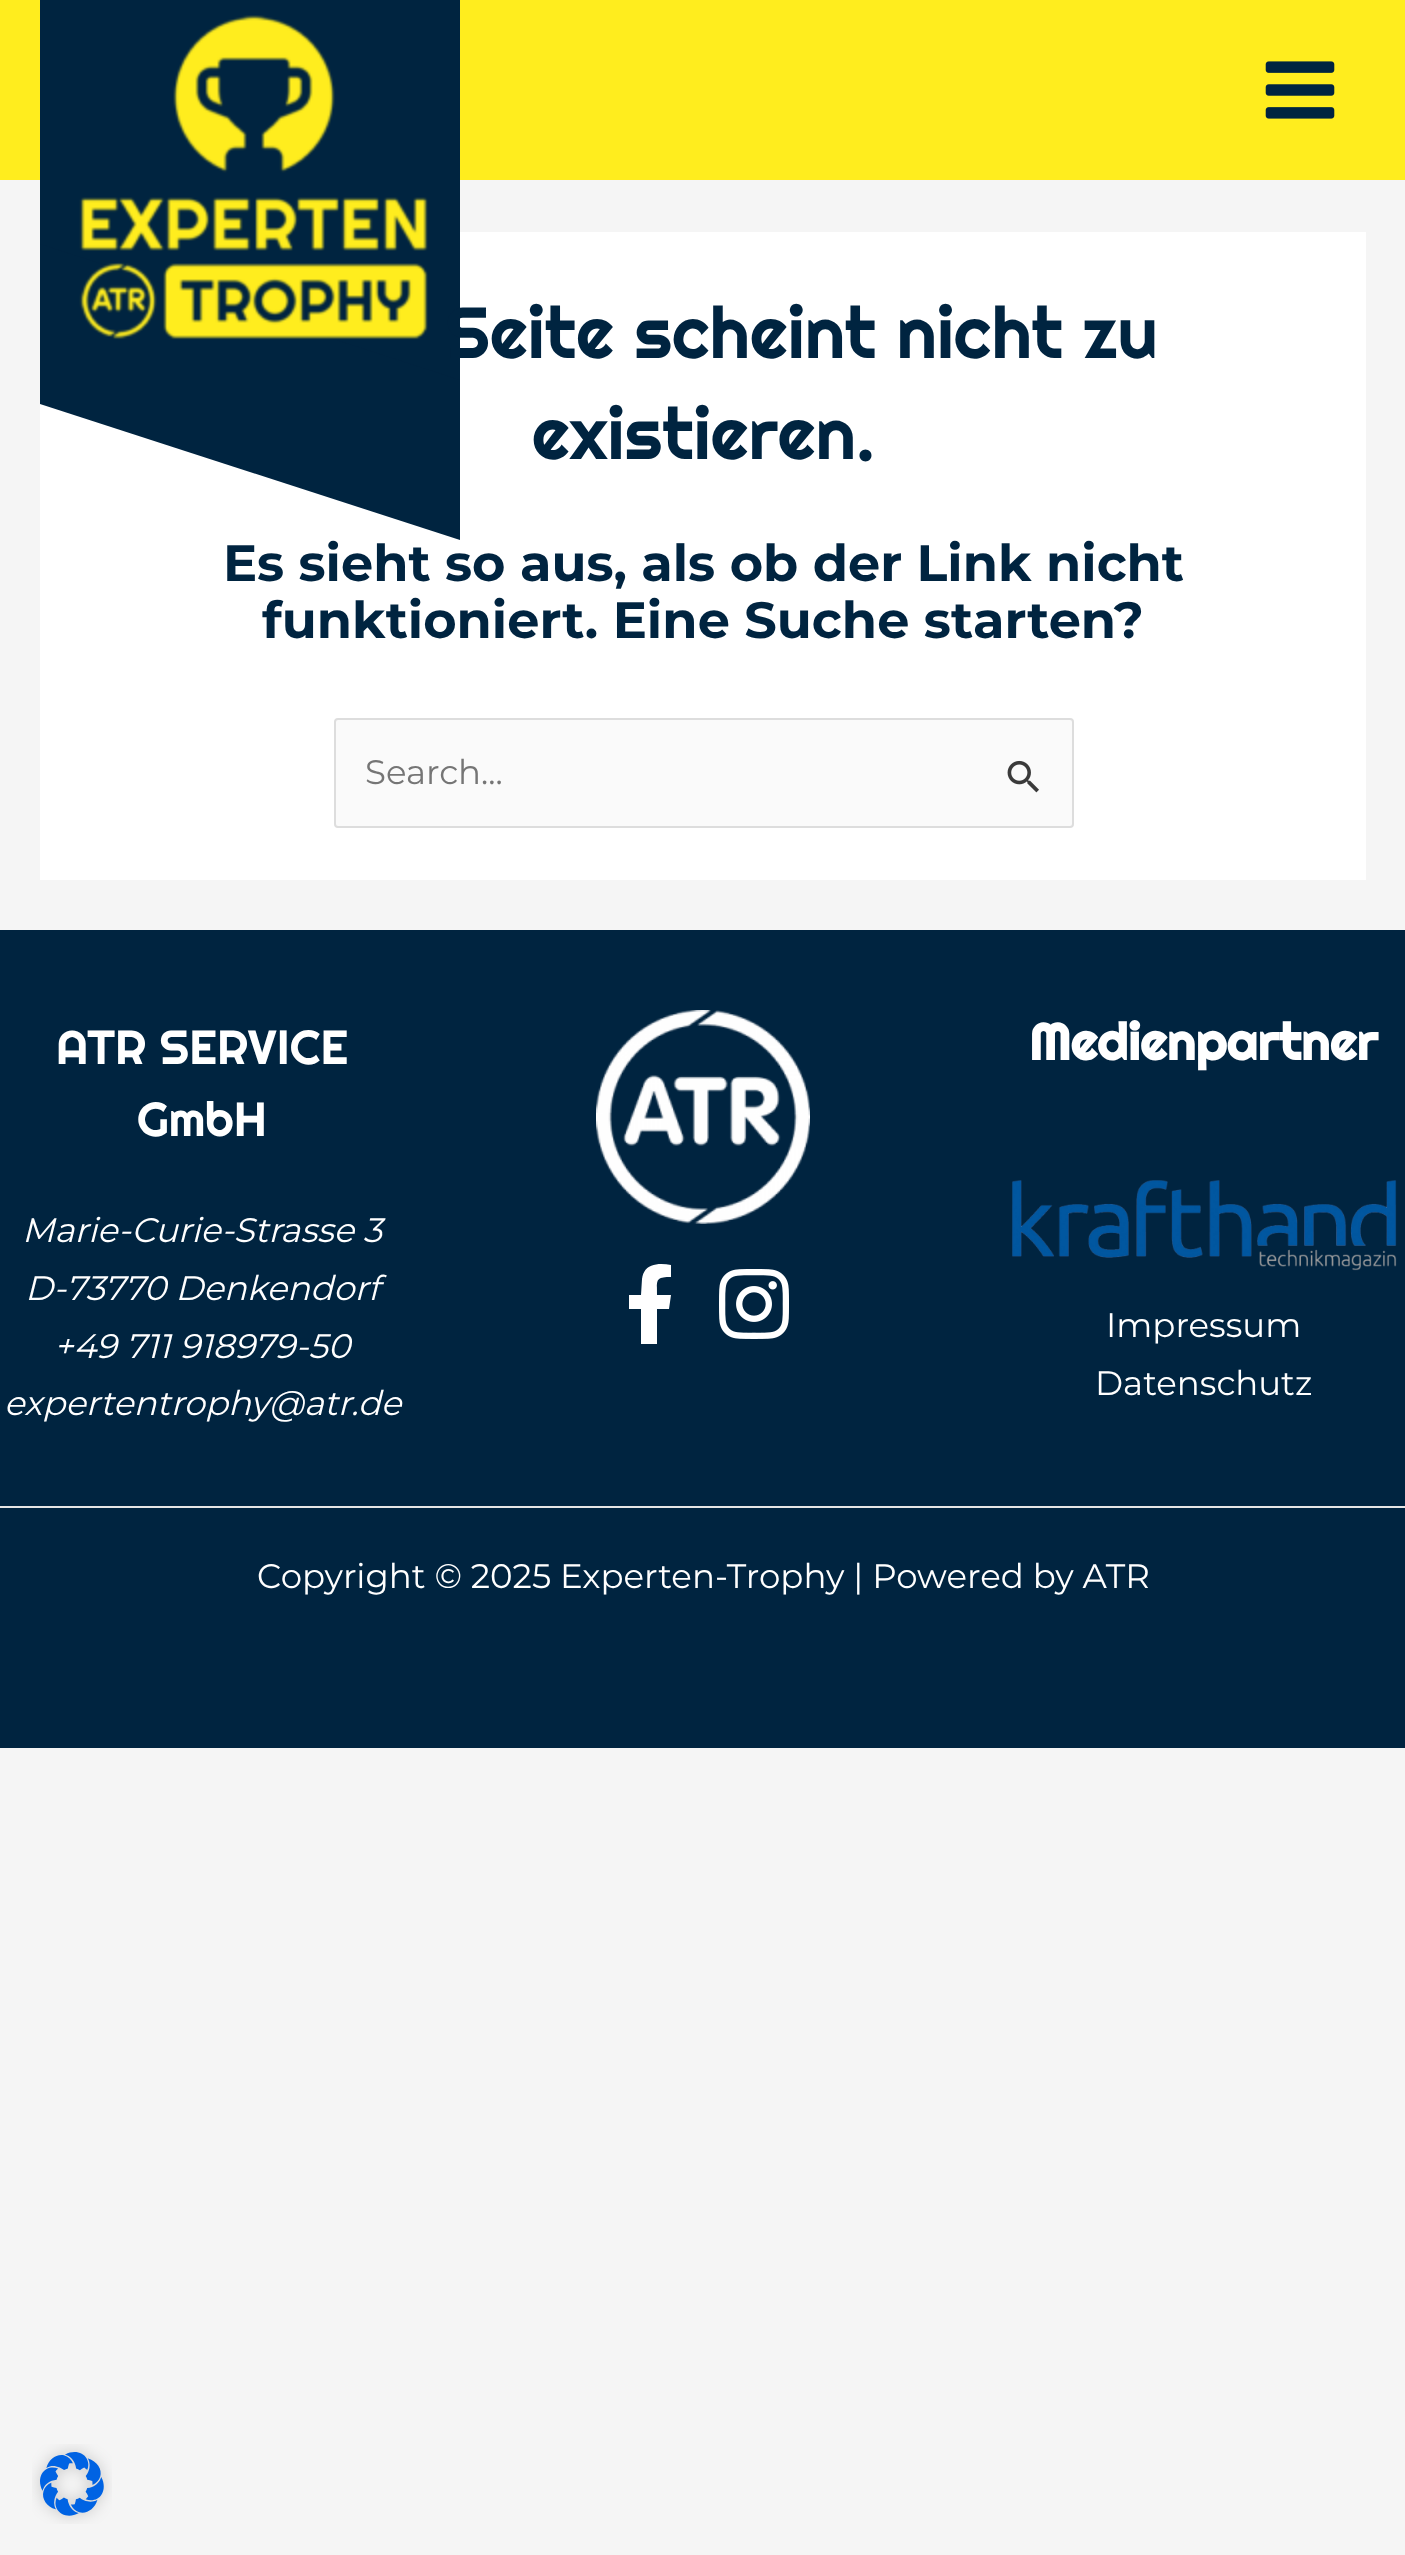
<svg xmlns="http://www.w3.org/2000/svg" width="1405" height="2555">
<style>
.a{font:72px Righteous;fill:#002440}
.b{font:bold 51px Montserrat;fill:#002440}
.c{font:34px Montserrat;fill:#757575}
.d{font:48px Righteous;fill:#fff}
.e{font:italic 34px Montserrat;fill:#fff}
.f{font:bold 51px Righteous;fill:#fff}
.g{font:34px Montserrat;fill:#fff}
</style>
<rect width="100%" height="100%" fill="#f5f5f5"/>
<path fill="#ffed1e" d="M0 0h1405v180H0z"/>
<path fill="#fff" d="M40 232h1326v648H40z"/>
<path fill="#002440" d="M40 0h420v380H40z"/>
<path fill="#002440" d="M40 244l420 136v160l-420-136z"/>
<image href="1.png" x="79" y="15" width="349" height="325"/>
<image href="2.png" x="1265" y="61" width="70" height="58"/>
<rect fill="#fafafa" stroke="#ddd" stroke-width="2" x="335" y="719" width="738" height="108" rx="3"/>
<image href="3.png" x="1007" y="760" width="32" height="33"/>
<path fill="#002440" d="M0 930h1405v818H0z"/>
<image href="4.png" x="596" y="1010" width="214" height="214"/>
<path fill="#fff" d="M669 1309l2-14h-14c0-15-2-18 14-18v-12c-12-2-27-2-29 14l-1 16h-12v14h12v35h16v-35z"/>
<image href="5.png" x="719" y="1269" width="70" height="70"/>
<image href="6.png" x="1012" y="1180" width="385" height="91"/>
<path fill="#e5e5e5" d="M0 1506h1405v2H0z"/>
<image href="7.png" x="32" y="2444" width="80" height="80"/>
<text class="a" x="446" y="358">Seite scheint nicht zu</text>
<text class="a" x="532" y="459">existieren.</text>
<text class="b" x="223" y="581">Es sieht so aus, als ob der Link nicht</text>
<text class="b" x="262" y="638">funktioniert. Eine Suche starten?</text>
<text class="c" x="365" y="784">Search...</text>
<text class="d" x="56" y="1064">ATR SERVICE</text>
<text class="d" x="137" y="1136">GmbH</text>
<text class="e" x="22" y="1242">Marie-Curie-Strasse 3</text>
<text class="e" x="25" y="1300">D-73770 Denkendorf</text>
<text class="e" x="54" y="1358">+49 711 918979-50</text>
<text class="e" x="4" y="1415">expertentrophy@atr.de</text>
<text class="f" x="1029" y="1060">Medienpartner</text>
<text class="g" x="1106" y="1337">Impressum</text>
<text class="g" x="1095" y="1395">Datenschutz</text>
<text class="g" x="257" y="1588">Copyright © 2025 Experten-Trophy | Powered by ATR</text>
</svg>
